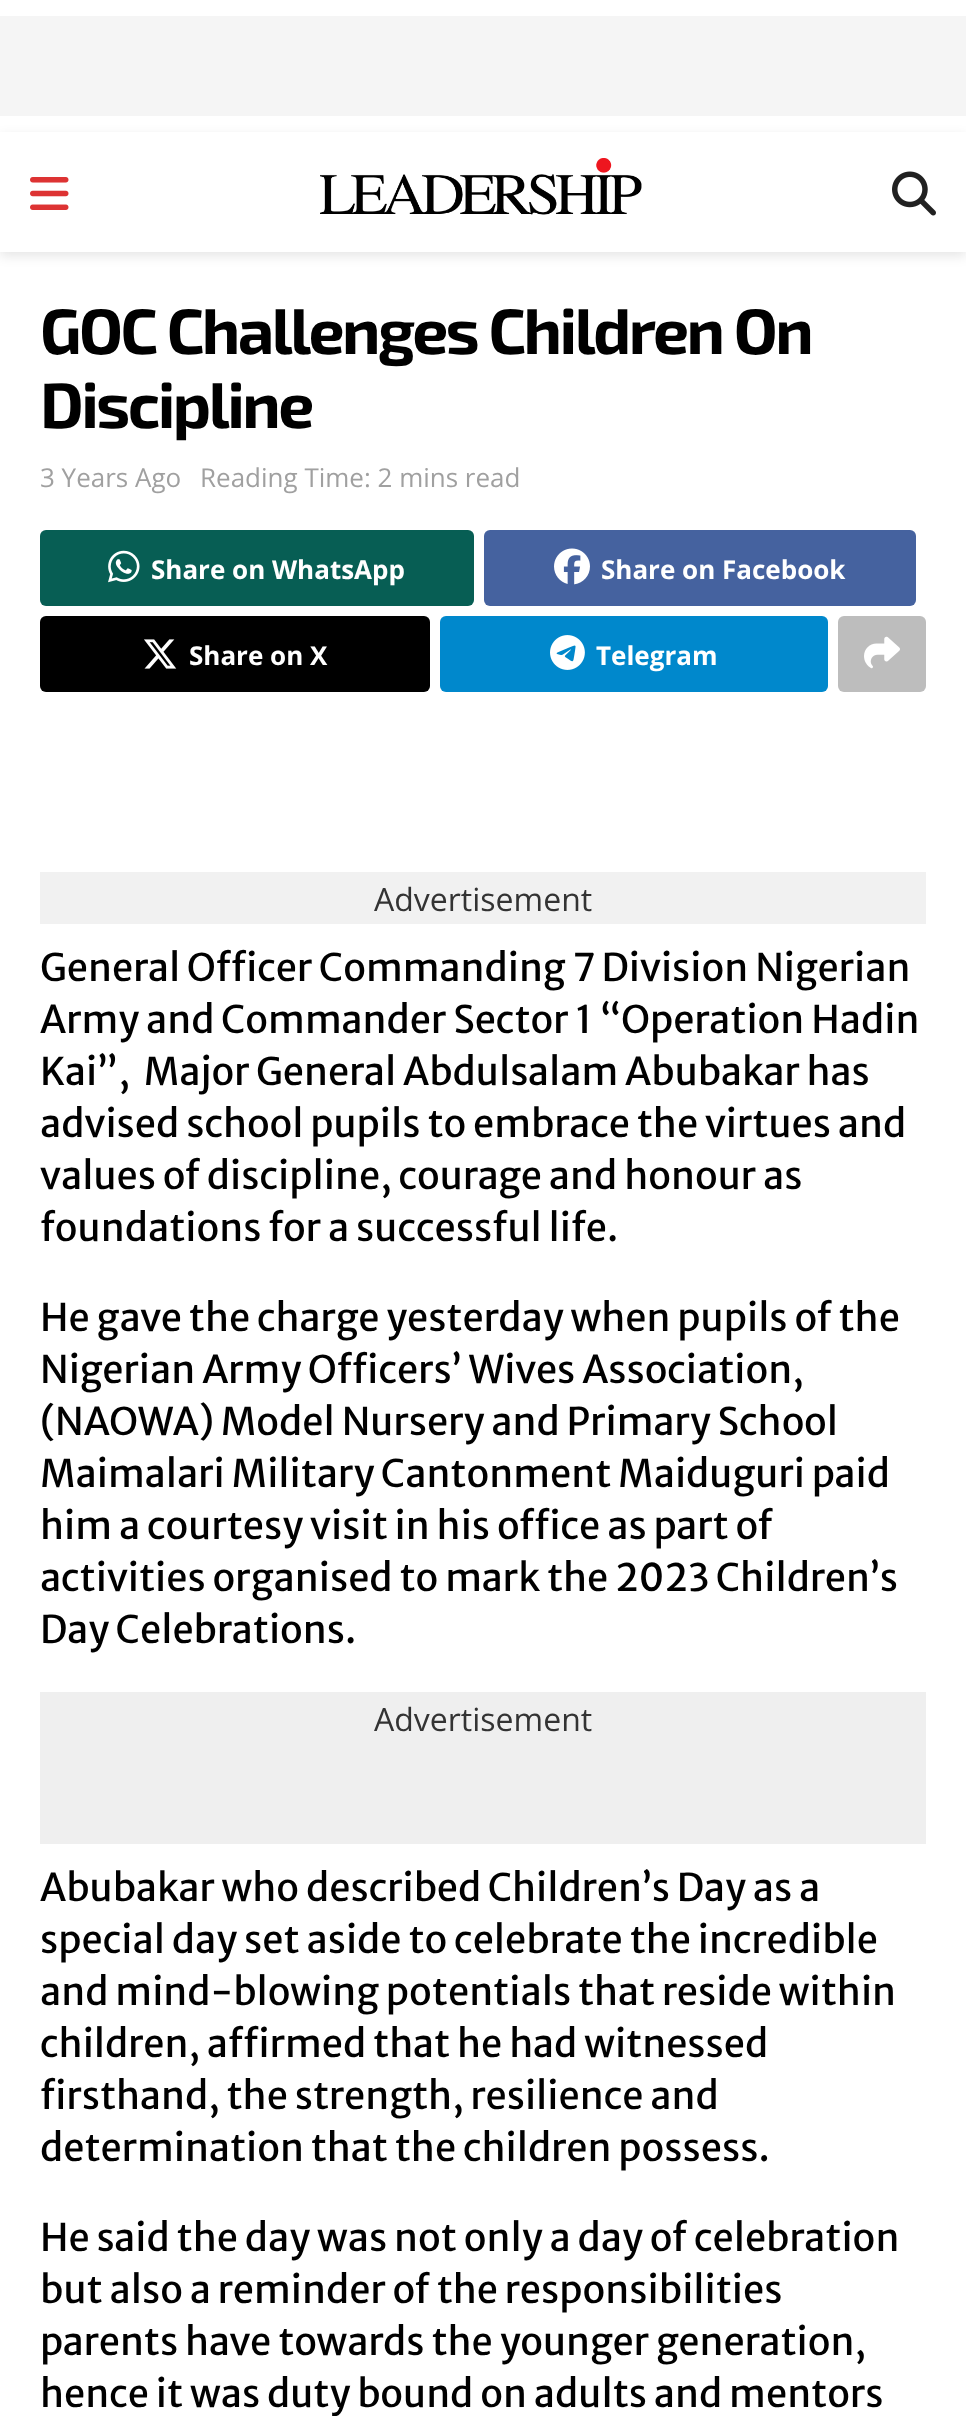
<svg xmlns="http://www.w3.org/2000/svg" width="966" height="2416">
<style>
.a{font:bold 64px 'Exo 2';letter-spacing:-2.55px;fill:#000}
.b{font:26px Open Sans;fill:#a0a0a0}
.c{font:bold 26px Open Sans;fill:#fff}
.d{font:32px Open Sans;fill:#333}
.e{font:38px Merriweather Sans;fill:#000}
</style>
<defs>
<clipPath id="clip1"><path d="M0 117h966v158h-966zm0 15h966v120h-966z" clip-rule="evenodd"/></clipPath>
</defs>
<rect width="100%" height="100%" fill="#fff"/>
<path fill="#f5f5f5" d="M0 16h966v100H0z"/>
<g clip-path="url(#clip1)">
<path fill="#0000001a" filter="blur(6px)" d="M0 136h966v120H0z"/>
</g>
<image href="1.png" x="30" y="177" width="39" height="33"/>
<image href="2.png" x="320" y="158" width="322" height="57"/>
<image href="3.png" x="892" y="171" width="44" height="45"/>
<rect fill="#075e54" x="40" y="530" width="434" height="76" rx="6"/>
<image href="4.png" x="108" y="550" width="32" height="33"/>
<rect fill="#45629f" x="484" y="530" width="432" height="76" rx="6"/>
<image href="5.png" x="554" y="548" width="36" height="37"/>
<rect fill="#000" x="40" y="616" width="390" height="76" rx="6"/>
<image href="6.png" x="144" y="639" width="33" height="30"/>
<rect fill="#08c" x="440" y="616" width="388" height="76" rx="6"/>
<image href="7.png" x="550" y="635" width="35" height="35"/>
<rect fill="#bdbdbd" x="838" y="616" width="88" height="76" rx="6"/>
<image href="8.png" x="864" y="636" width="36" height="33"/>
<path fill="#f1f1f1" d="M40 872h886v52H40z"/>
<path fill="#efefef" d="M40 1692h886v152H40z"/>
<text class="a" x="40" y="354">GOC Challenges Children On</text>
<text class="a" x="40" y="428">Discipline</text>
<text class="b" x="40" y="487">3 Years Ago</text>
<text class="b" x="200" y="487">Reading Time: 2 mins read</text>
<text class="c" x="151" y="579">Share on WhatsApp</text>
<text class="c" x="601" y="579">Share on Facebook</text>
<text class="c" x="189" y="665">Share on X</text>
<text class="c" x="596" y="665">Telegram</text>
<text class="d" x="374" y="911">Advertisement</text>
<text class="e" x="40" y="981">General Officer Commanding 7 Division Nigerian</text>
<text class="e" x="40" y="1033">Army and Commander Sector 1 “Operation Hadin</text>
<text class="e" xml:space="preserve" x="40" y="1085">Kai”,  Major General Abdulsalam Abubakar has</text>
<text class="e" x="40" y="1137">advised school pupils to embrace the virtues and</text>
<text class="e" x="40" y="1189">values of discipline, courage and honour as</text>
<text class="e" x="40" y="1241">foundations for a successful life.</text>
<text class="e" x="40" y="1331">He gave the charge yesterday when pupils of the</text>
<text class="e" x="40" y="1383">Nigerian Army Officers’ Wives Association,</text>
<text class="e" x="40" y="1435">(NAOWA) Model Nursery and Primary School</text>
<text class="e" x="40" y="1487">Maimalari Military Cantonment Maiduguri paid</text>
<text class="e" x="40" y="1539">him a courtesy visit in his office as part of</text>
<text class="e" x="40" y="1591">activities organised to mark the 2023 Children’s</text>
<text class="e" x="40" y="1643">Day Celebrations.</text>
<text class="d" x="374" y="1731">Advertisement</text>
<text class="e" x="40" y="1901">Abubakar who described Children’s Day as a</text>
<text class="e" x="40" y="1953">special day set aside to celebrate the incredible</text>
<text class="e" x="40" y="2005">and mind-blowing potentials that reside within</text>
<text class="e" x="40" y="2057">children, affirmed that he had witnessed</text>
<text class="e" x="40" y="2109">firsthand, the strength, resilience and</text>
<text class="e" x="40" y="2161">determination that the children possess.</text>
<text class="e" x="40" y="2251">He said the day was not only a day of celebration</text>
<text class="e" x="40" y="2303">but also a reminder of the responsibilities</text>
<text class="e" x="40" y="2355">parents have towards the younger generation,</text>
<text class="e" x="40" y="2407">hence it was duty bound on adults and mentors</text>
</svg>
